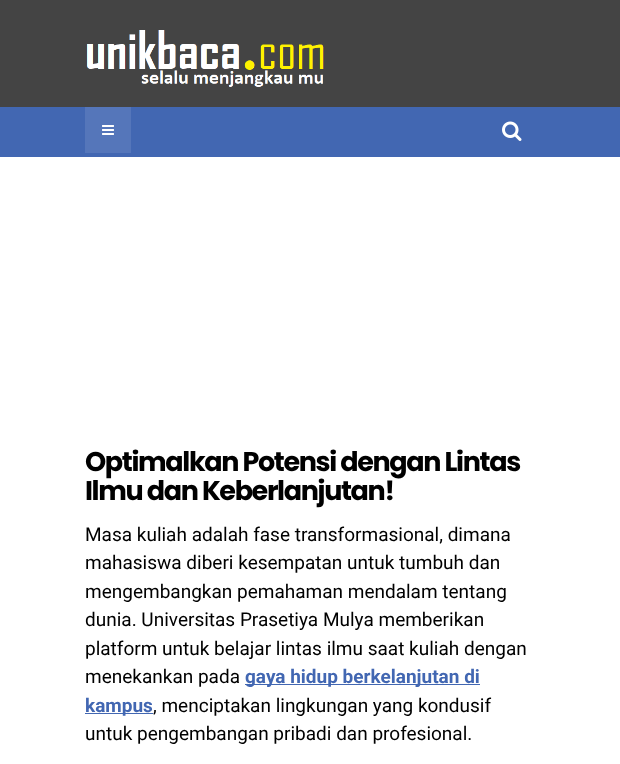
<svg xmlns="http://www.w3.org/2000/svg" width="620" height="764">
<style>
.a{font:bold 27px Poppins;letter-spacing:-1.35px;fill:#000}
.b{font:19px Roboto;fill:#000}
.c{font:bold 19px Roboto;fill:#4267b2}
</style>
<rect width="100%" height="100%" fill="#fff"/>
<path fill="#444" d="M0 0h620v107H0z"/>
<image href="1.png" x="86" y="30" width="238" height="57"/>
<path fill="#4267b2" d="M0 107h620v50H0z"/>
<path fill="#5576ba" d="M85 107h46v46H85z"/>
<image href="2.png" x="102" y="125" width="12" height="10"/>
<image href="3.png" x="502" y="121" width="20" height="20"/>
<path fill="#4267b2" d="M245 684h235v1H245z"/>
<path fill="#4267b2" d="M85 713h68v1H85z"/>
<text class="a" x="85" y="471">Optimalkan Potensi dengan Lintas</text>
<text class="a" x="85" y="500">Ilmu dan Keberlanjutan!</text>
<text class="b" x="85" y="541">Masa kuliah adalah fase transformasional, dimana</text>
<text class="b" x="85" y="569">mahasiswa diberi kesempatan untuk tumbuh dan</text>
<text class="b" x="85" y="598">mengembangkan pemahaman mendalam tentang</text>
<text class="b" x="85" y="626">dunia. Universitas Prasetiya Mulya memberikan</text>
<text class="b" x="85" y="655">platform untuk belajar lintas ilmu saat kuliah dengan</text>
<text class="b" x="85" y="683">menekankan pada</text>
<text class="c" x="245" y="683">gaya hidup berkelanjutan di</text>
<text class="c" x="85" y="712">kampus</text>
<text class="b" x="153" y="712">, menciptakan lingkungan yang kondusif</text>
<text class="b" x="85" y="740">untuk pengembangan pribadi dan profesional.</text>
</svg>
